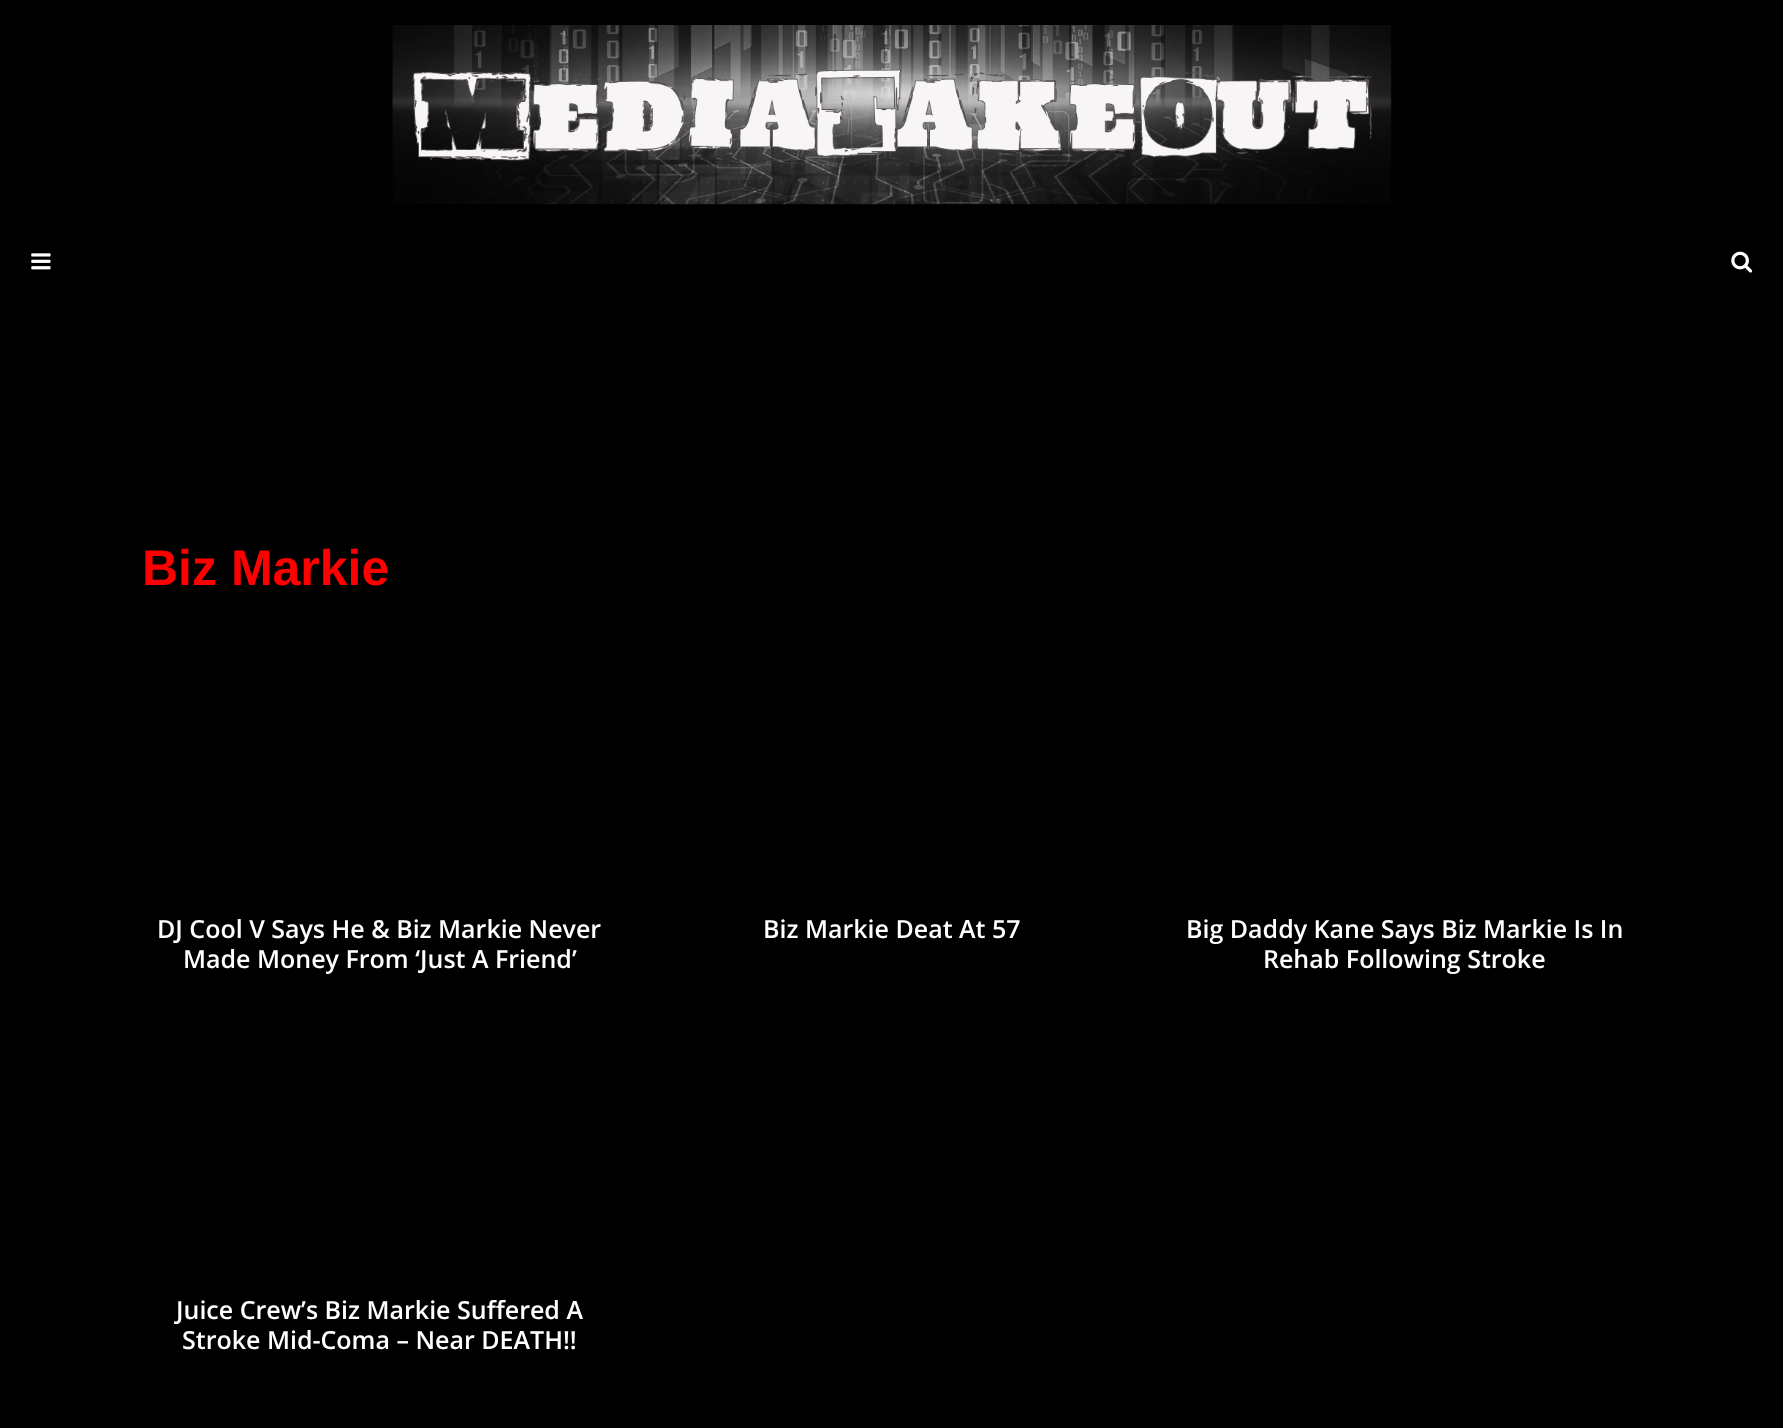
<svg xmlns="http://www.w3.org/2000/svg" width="1783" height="1428">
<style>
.a{font:bold 50px Liberation Sans;fill:#f00}
.b{font:600 25px Open Sans;fill:#fff}
</style>
<rect width="100%" height="100%" fill="#000"/>
<image href="1.png" x="392" y="25" width="1000" height="180"/>
<image href="2.png" x="31" y="253" width="20" height="17"/>
<image href="3.png" x="1731" y="251" width="22" height="22"/>
<text class="a" x="142" y="585">Biz Markie</text>
<text class="b" x="157" y="938">DJ Cool V Says He &amp; Biz Markie Never</text>
<text class="b" x="183" y="968">Made Money From ‘Just A Friend’</text>
<text class="b" x="763" y="938">Biz Markie Deat At 57</text>
<text class="b" x="1186" y="938">Big Daddy Kane Says Biz Markie Is In</text>
<text class="b" x="1263" y="968">Rehab Following Stroke</text>
<text class="b" x="176" y="1319">Juice Crew’s Biz Markie Suffered A</text>
<text class="b" x="182" y="1349">Stroke Mid-Coma – Near DEATH!!</text>
</svg>
